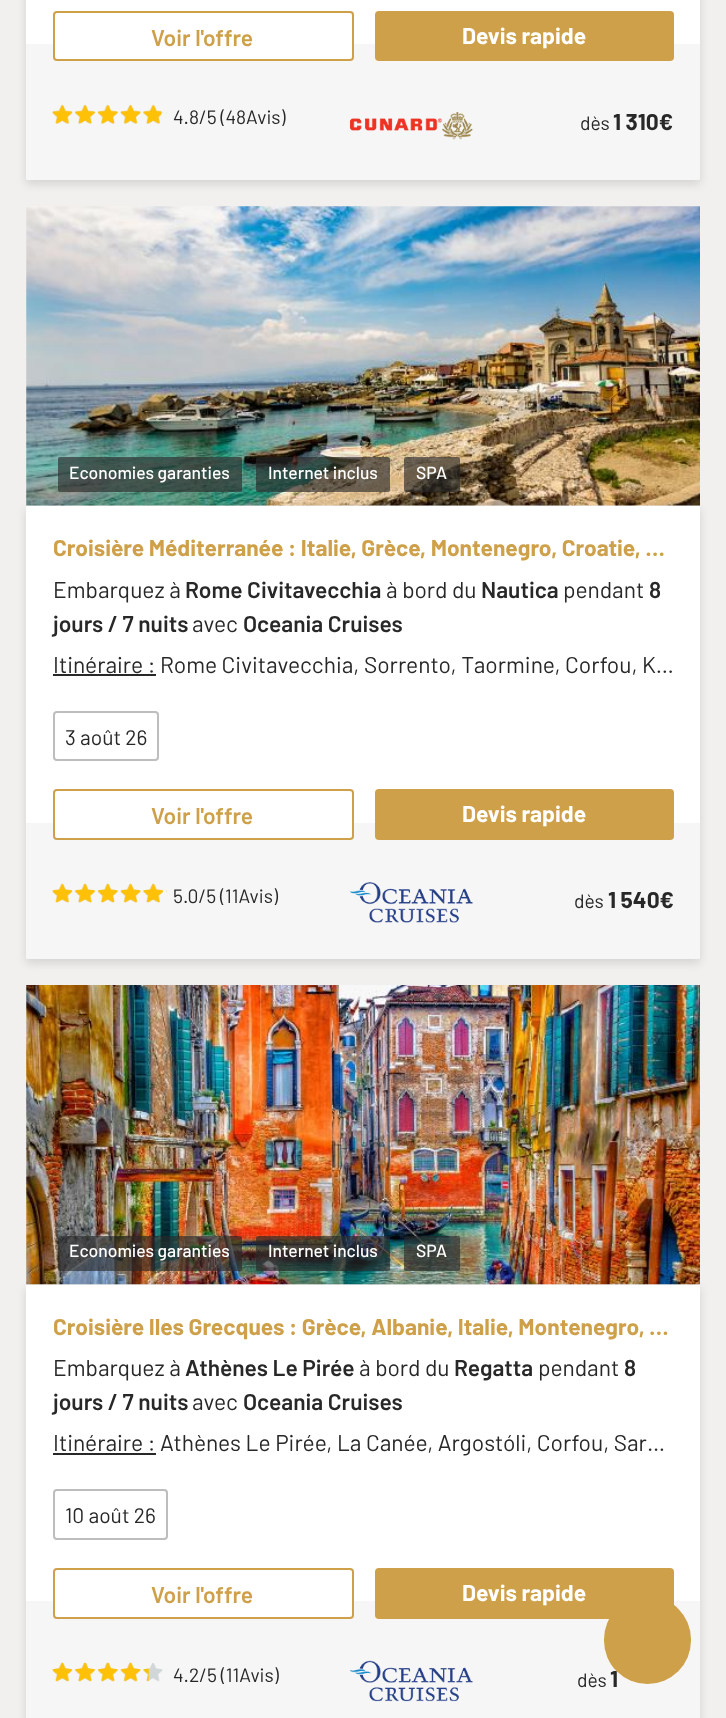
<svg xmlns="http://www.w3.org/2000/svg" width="726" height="1718">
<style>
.a{font:600 22.75px Barlow;fill:#cea049}
.b{font:bold 22.75px Barlow;fill:#fff}
.c{font:19.25px Barlow;fill:#282828}
.d{font:bold 22.75px Barlow;fill:#282828}
.e{font:500 17.5px Barlow;fill:#fff}
.f{font:bold 22.75px Barlow;fill:#cea049}
.g{font:22.75px Barlow;fill:#282828}
.h{font:600 22.75px Barlow;fill:#282828}
.i{font:21px Barlow;fill:#282828}
</style>
<rect width="100%" height="100%" fill="#f1f0ee"/>
<rect fill="#0000001f" filter="blur(5px)" x="26" y="-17" width="674" height="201" rx="2"/>
<path fill="#fff" d="M26-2h674v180c0 1-1 2-2 2h-670c-1 0-2-1-2-2z"/>
<path fill="#f6f6f6" d="M26 44h674v134c0 1-1 2-2 2h-670c-1 0-2-1-2-2z"/>
<rect fill="#fff" stroke="#cea049" stroke-width="2" x="54" y="12" width="299" height="48" rx="3"/>
<rect fill="#cea049" x="375" y="11" width="299" height="50" rx="4"/>
<image href="1.png" x="52" y="105" width="115" height="19"/>
<image href="2.png" x="52" y="104" width="109" height="20"/>
<image href="3.png" x="350" y="112" width="123" height="28"/>
<image href="4.png" x="26" y="206" width="674" height="300"/>
<rect fill="#282828a3" x="58" y="457" width="184" height="35" rx="2"/>
<rect fill="#282828a3" x="256" y="457" width="134" height="35" rx="2"/>
<rect fill="#282828a3" x="404" y="457" width="56" height="35" rx="2"/>
<rect fill="#0000001f" filter="blur(5px)" x="26" y="509" width="674" height="454" rx="2"/>
<path fill="#fff" d="M26 506h674v451c0 1-1 2-2 2h-670c-1 0-2-1-2-2z"/>
<path fill="#f6f6f6" d="M26 823h674v134c0 1-1 2-2 2h-670c-1 0-2-1-2-2z"/>
<path fill="#282828" d="M53 674h103v2H53z"/>
<rect fill="none" stroke="#bdbdbd" stroke-width="2" x="54" y="712" width="104" height="48" rx="3"/>
<rect fill="#fff" stroke="#cea049" stroke-width="2" x="54" y="790" width="299" height="49" rx="3"/>
<rect fill="#cea049" x="375" y="789" width="299" height="51" rx="4"/>
<image href="5.png" x="52" y="883" width="115" height="20"/>
<image href="6.png" x="52" y="883" width="115" height="20"/>
<image href="7.png" x="350" y="882" width="123" height="41"/>
<image href="8.png" x="26" y="985" width="674" height="300"/>
<rect fill="#282828a3" x="58" y="1236" width="184" height="35" rx="2"/>
<rect fill="#282828a3" x="256" y="1236" width="134" height="35" rx="2"/>
<rect fill="#282828a3" x="404" y="1236" width="56" height="35" rx="2"/>
<rect fill="#0000001f" filter="blur(5px)" x="26" y="1288" width="674" height="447" rx="2"/>
<path fill="#fff" d="M26 1285h674v316H26z"/>
<path fill="#f6f6f6" d="M26 1601h674v117H26z"/>
<path fill="#282828" d="M53 1453h103v2H53z"/>
<rect fill="none" stroke="#bdbdbd" stroke-width="2" x="54" y="1490" width="113" height="49" rx="3"/>
<rect fill="#fff" stroke="#cea049" stroke-width="2" x="54" y="1569" width="299" height="49" rx="3"/>
<rect fill="#cea049" x="375" y="1568" width="299" height="51" rx="4"/>
<image href="9.png" x="52" y="1662" width="115" height="20"/>
<image href="10.png" x="52" y="1662" width="97" height="20"/>
<image href="11.png" x="350" y="1660" width="123" height="42"/>
<text class="a" x="151" y="46">Voir l'offre</text>
<text class="b" x="462" y="44">Devis rapide</text>
<text class="c" x="173" y="124">4.8/5 (48Avis)</text>
<text class="c" x="580" y="130">dès</text>
<text class="d" x="613" y="130">1 310€</text>
<text class="e" x="69" y="479">Economies garanties</text>
<text class="e" x="268" y="479">Internet inclus</text>
<text class="e" x="416" y="479">SPA</text>
<text class="f" x="53" y="556">Croisière Méditerranée : Italie, Grèce, Montenegro, Croatie, …</text>
<text class="g" x="53" y="598">Embarquez à</text>
<text class="h" x="185" y="598">Rome Civitavecchia</text>
<text class="g" x="386" y="598">à bord du</text>
<text class="h" x="481" y="598">Nautica</text>
<text class="g" x="563" y="598">pendant</text>
<text class="h" x="649" y="598">8</text>
<text class="h" x="53" y="632">jours / 7 nuits</text>
<text class="g" x="192" y="632">avec</text>
<text class="h" x="243" y="632">Oceania Cruises</text>
<text class="g" x="53" y="673">Itinéraire : Rome Civitavecchia, Sorrento, Taormine, Corfou, K…</text>
<text class="i" x="65" y="745">3 août 26</text>
<text class="a" x="151" y="824">Voir l'offre</text>
<text class="b" x="462" y="822">Devis rapide</text>
<text class="c" x="173" y="903">5.0/5 (11Avis)</text>
<text class="c" x="574" y="908">dès</text>
<text class="d" x="608" y="908">1 540€</text>
<text class="e" x="69" y="1257">Economies garanties</text>
<text class="e" x="268" y="1257">Internet inclus</text>
<text class="e" x="416" y="1257">SPA</text>
<text class="f" x="53" y="1335">Croisière Iles Grecques : Grèce, Albanie, Italie, Montenegro, …</text>
<text class="g" x="53" y="1376">Embarquez à</text>
<text class="h" x="185" y="1376">Athènes Le Pirée</text>
<text class="g" x="359" y="1376">à bord du</text>
<text class="h" x="454" y="1376">Regatta</text>
<text class="g" x="538" y="1376">pendant</text>
<text class="h" x="624" y="1376">8</text>
<text class="h" x="53" y="1410">jours / 7 nuits</text>
<text class="g" x="192" y="1410">avec</text>
<text class="h" x="243" y="1410">Oceania Cruises</text>
<text class="g" x="53" y="1451">Itinéraire : Athènes Le Pirée, La Canée, Argostóli, Corfou, Sar…</text>
<text class="i" x="65" y="1523">10 août 26</text>
<text class="a" x="151" y="1603">Voir l'offre</text>
<text class="b" x="462" y="1601">Devis rapide</text>
<text class="c" x="173" y="1682">4.2/5 (11Avis)</text>
<text class="c" x="577" y="1687">dès</text>
<text class="d" x="610" y="1687">1</text>
<rect fill="#cea049" x="604" y="1596" width="87" height="88" rx="43.5"/>
</svg>
